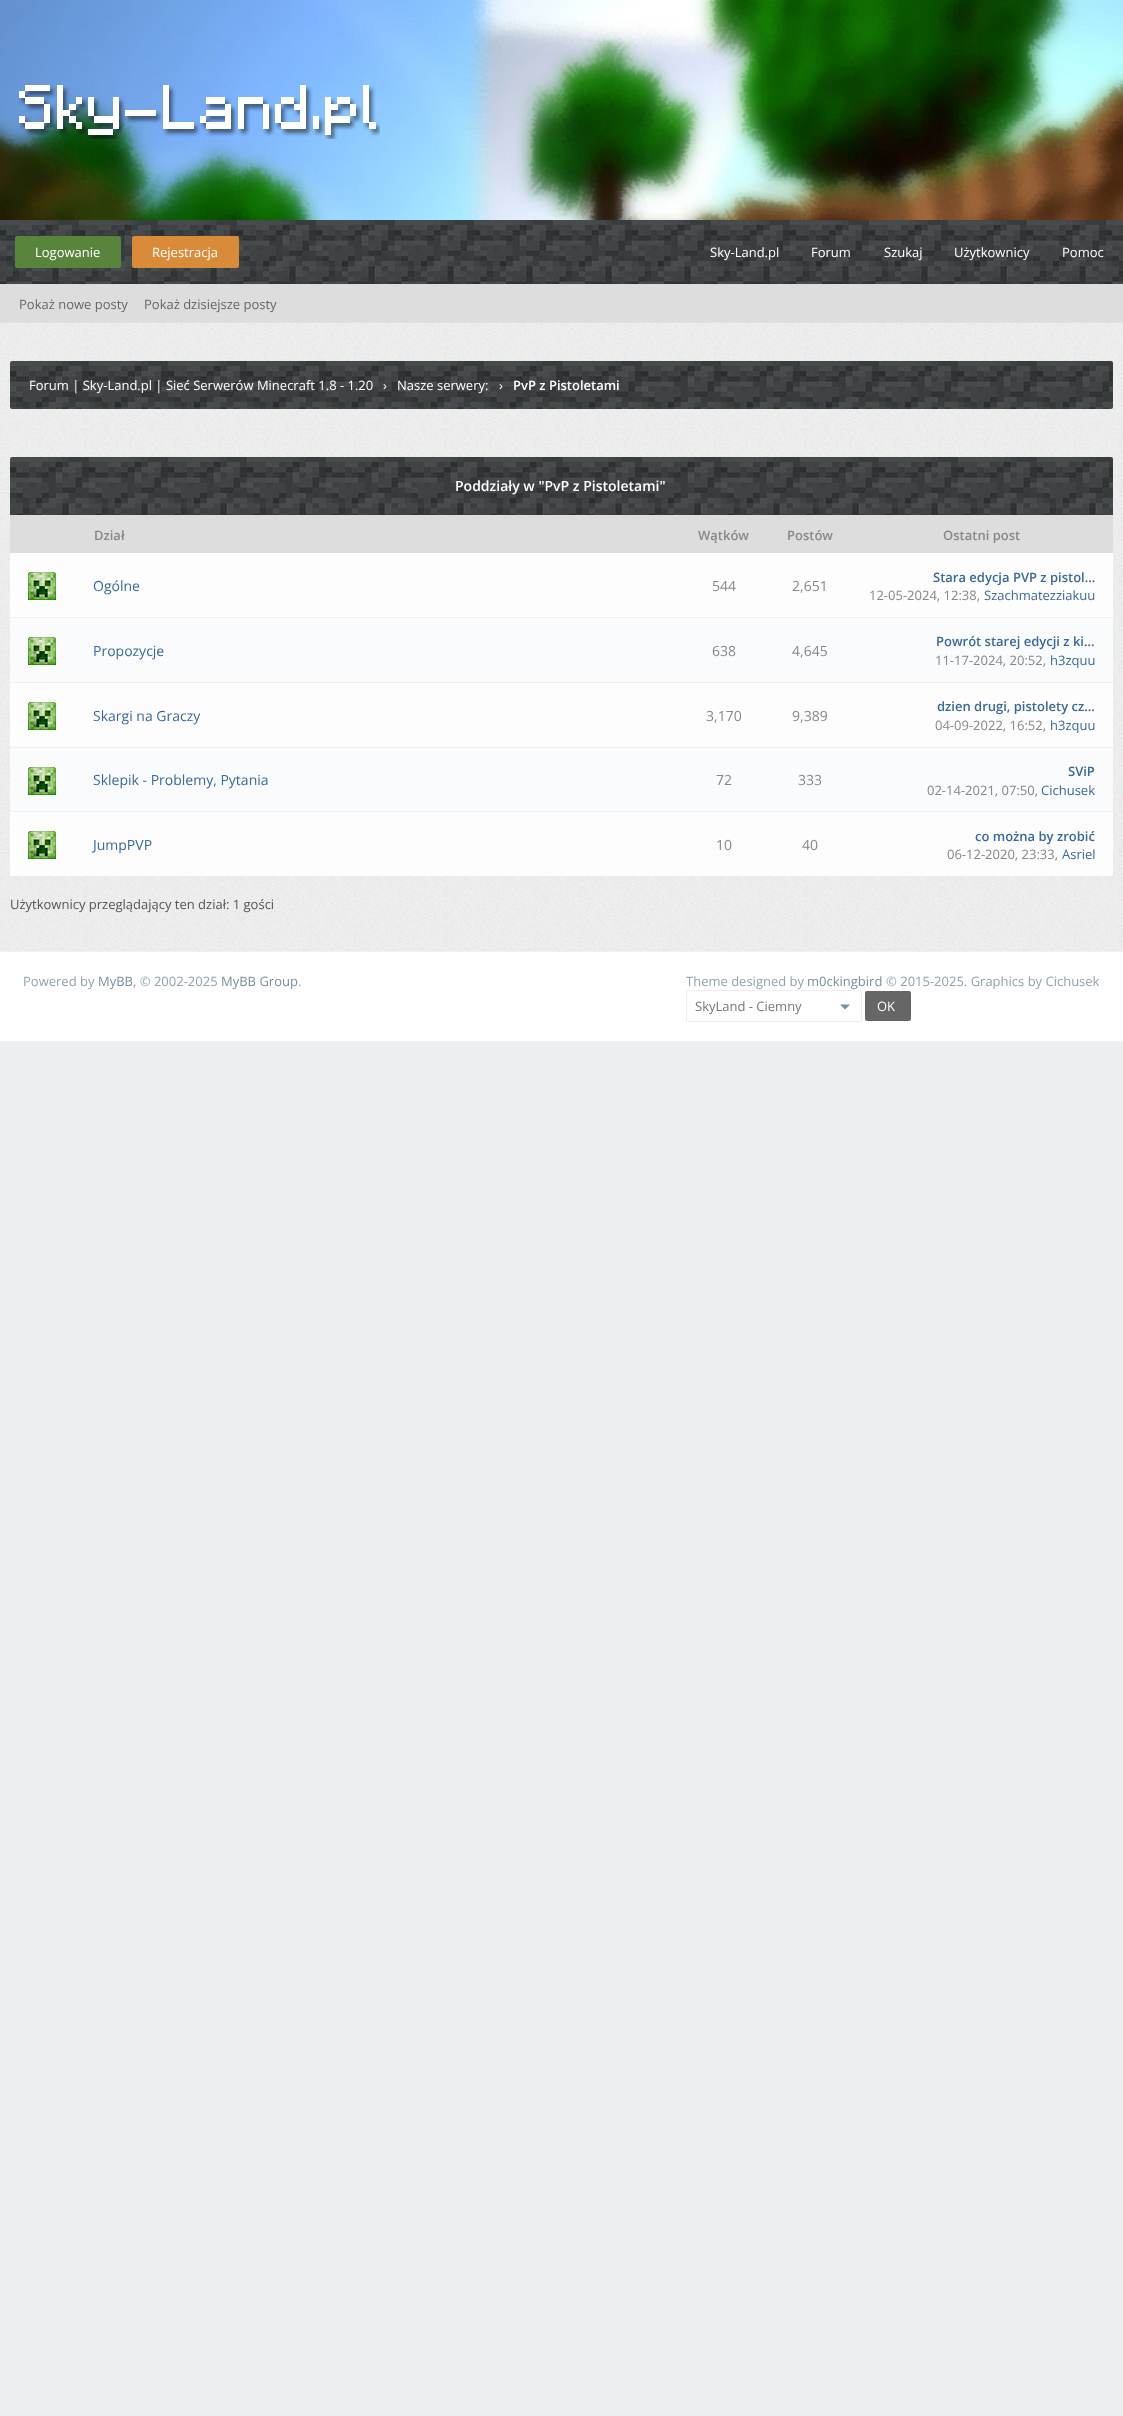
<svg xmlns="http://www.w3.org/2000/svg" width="1123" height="2416">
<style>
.a{font:13px Open Sans;fill:#fff}
.b{font:13px Open Sans;fill:#666}
.c{font:600 13px Open Sans;fill:#fff}
.d{font:600 14px Open Sans;fill:#fff}
.e{font:600 13px Open Sans;fill:#888}
.f{font:14px Open Sans;fill:#3c699c}
.g{font:14px Open Sans;fill:#888}
.h{font:600 13px Open Sans;fill:#3c699c}
.i{font:13px Open Sans;fill:#888}
.j{font:13px Open Sans;fill:#3c699c}
.k{font:13px Open Sans;fill:#555}
.l{font:13px Open Sans;fill:#90a4ae}
.m{font:13px Open Sans;fill:#78909c}
.n{font:13px Open Sans;fill:#777}
</style>
<rect width="100%" height="100%" fill="#eceef0"/>
<image href="1.png" x="0" y="0" width="1123" height="220"/>
<image href="2.png" x="19" y="85" width="361" height="54"/>
<image href="3.png" x="0" y="220" width="1123" height="64"/>
<rect fill="#58853b" x="15" y="236" width="106" height="32" rx="2"/>
<rect fill="#d98b3a" x="132" y="236" width="107" height="32" rx="2"/>
<path fill="#ddd" d="M0 284h1123v38H0z"/>
<path fill="#e3e3e3" d="M0 322h1123v1H0z"/>
<path fill="#efefef" d="M0 323h1123v628H0z"/>
<image href="4.png" x="0" y="323" width="1123" height="628"/>
<image href="5.png" x="10" y="361" width="1103" height="48"/>
<image href="6.png" x="10" y="457" width="1103" height="58"/>
<path fill="#ddd" d="M10 515h1103v38H10z"/>
<path fill="#fdfdfd" d="M10 553h1103v64H10z"/>
<path fill="#f0f0f0" d="M10 617h1103v1H10z"/>
<image href="7.png" x="28" y="572" width="28" height="28"/>
<path fill="#fafbfc" d="M10 618h1103v64H10z"/>
<path fill="#f0f0f0" d="M10 682h1103v1H10z"/>
<image href="8.png" x="28" y="637" width="28" height="28"/>
<path fill="#fdfdfd" d="M10 683h1103v64H10z"/>
<path fill="#f0f0f0" d="M10 747h1103v1H10z"/>
<image href="7.png" x="28" y="702" width="28" height="28"/>
<path fill="#fafbfc" d="M10 748h1103v63H10z"/>
<path fill="#f0f0f0" d="M10 811h1103v1H10z"/>
<image href="8.png" x="28" y="767" width="28" height="28"/>
<path fill="#fdfdfd" d="M10 812h66v64h-64c-1 0-2-1-2-2z"/>
<image href="7.png" x="28" y="831" width="28" height="28"/>
<path fill="#fdfdfd" d="M76 812h777v64H76z"/>
<path fill="#fdfdfd" d="M853 812h260v62c0 1-1 2-2 2h-258z"/>
<path fill="#fff" d="M0 952h1123v89H0z"/>
<path fill="#ebf1f7" d="M0 951h1123v1H0z"/>
<image href="9.png" x="840" y="1004" width="10" height="6"/>
<rect fill="none" stroke="#eee" x="686.5" y="990.5" width="175" height="31" rx="0.5"/>
<rect fill="#666" x="865" y="991" width="46" height="30" rx="2"/>
<text class="a" x="35" y="257">Logowanie</text>
<text class="a" x="152" y="257">Rejestracja</text>
<text class="a" x="710" y="257">Sky-Land.pl</text>
<text class="a" x="811" y="257">Forum</text>
<text class="a" x="884" y="257">Szukaj</text>
<text class="a" x="954" y="257">Użytkownicy</text>
<text class="a" x="1062" y="257">Pomoc</text>
<text class="b" x="19" y="309">Pokaż nowe posty</text>
<text class="b" x="144" y="309">Pokaż dzisiejsze posty</text>
<text class="a" x="29" y="390">Forum | Sky-Land.pl | Sieć Serwerów Minecraft 1.8 - 1.20</text>
<text class="a" x="383" y="390">›</text>
<text class="a" x="397" y="390">Nasze serwery:</text>
<text class="a" x="499" y="390">›</text>
<text class="c" x="513" y="390">PvP z Pistoletami</text>
<text class="d" x="455" y="491">Poddziały w "PvP z Pistoletami"</text>
<text class="e" x="94" y="540">Dział</text>
<text class="e" x="698" y="540">Wątków</text>
<text class="e" x="787" y="540">Postów</text>
<text class="e" x="943" y="540">Ostatni post</text>
<text class="f" x="93" y="591">Ogólne</text>
<text class="g" x="712" y="591">544</text>
<text class="g" x="792" y="591">2,651</text>
<text class="h" x="933" y="582">Stara edycja PVP z pistol...</text>
<text class="i" x="869" y="600">12-05-2024, 12:38,</text>
<text class="j" x="984" y="600">Szachmatezziakuu</text>
<text class="f" x="93" y="656">Propozycje</text>
<text class="g" x="712" y="656">638</text>
<text class="g" x="792" y="656">4,645</text>
<text class="h" x="936" y="646">Powrót starej edycji z ki...</text>
<text class="i" x="935" y="665">11-17-2024, 20:52,</text>
<text class="j" x="1050" y="665">h3zquu</text>
<text class="f" x="93" y="721">Skargi na Graczy</text>
<text class="g" x="706" y="721">3,170</text>
<text class="g" x="792" y="721">9,389</text>
<text class="h" x="937" y="711">dzien drugi, pistolety cz...</text>
<text class="i" x="935" y="730">04-09-2022, 16:52,</text>
<text class="j" x="1050" y="730">h3zquu</text>
<text class="f" x="93" y="785">Sklepik - Problemy, Pytania</text>
<text class="g" x="716" y="785">72</text>
<text class="g" x="798" y="785">333</text>
<text class="h" x="1068" y="776">SViP</text>
<text class="i" x="927" y="795">02-14-2021, 07:50,</text>
<text class="j" x="1041" y="795">Cichusek</text>
<text class="f" x="93" y="850">JumpPVP</text>
<text class="g" x="716" y="850">10</text>
<text class="g" x="802" y="850">40</text>
<text class="h" x="975" y="841">co można by zrobić</text>
<text class="i" x="947" y="859">06-12-2020, 23:33,</text>
<text class="j" x="1062" y="859">Asriel</text>
<text class="k" x="10" y="909">Użytkownicy przeglądający ten dział: 1 gości</text>
<text class="l" x="23" y="986">Powered by</text>
<text class="m" x="98" y="986">MyBB</text>
<text class="l" x="133" y="986">, © 2002-2025</text>
<text class="m" x="221" y="986">MyBB Group</text>
<text class="l" x="298" y="986">.</text>
<text class="l" x="686" y="986">Theme designed by</text>
<text class="m" x="807" y="986">m0ckingbird</text>
<text class="l" x="886" y="986">© 2015-2025. Graphics by Cichusek</text>
<text class="n" x="695" y="1011">SkyLand - Ciemny</text>
<text class="a" x="877" y="1011">OK</text>
</svg>
